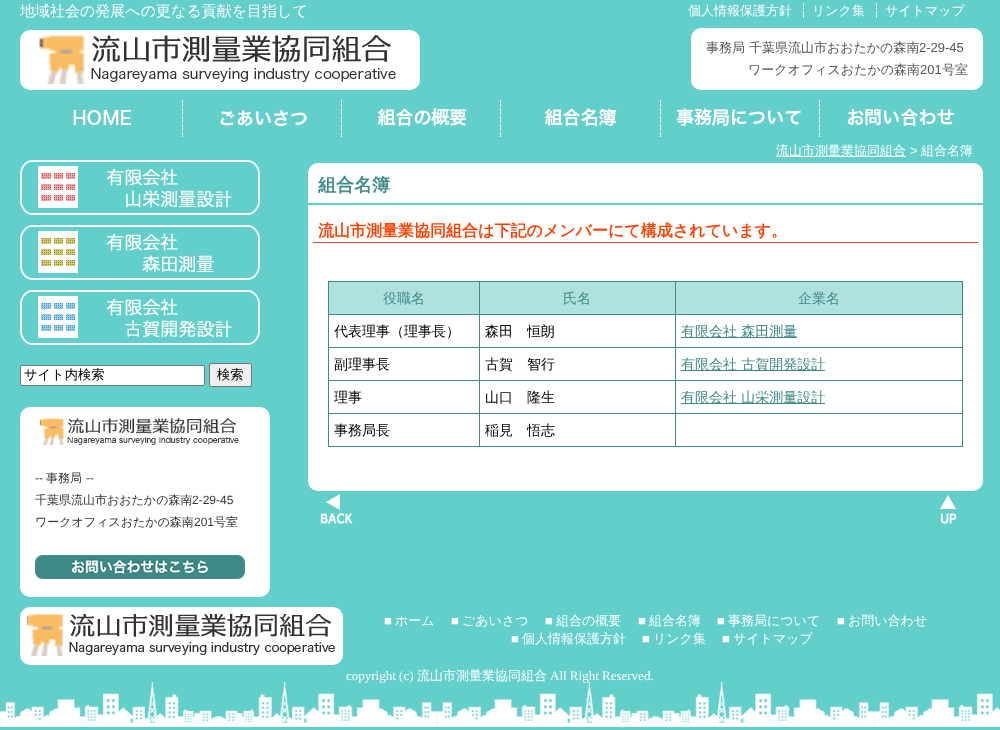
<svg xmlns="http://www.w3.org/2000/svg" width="1000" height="730">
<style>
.a{font:500 15px WenQuanYi Zen Hei;fill:#fff}
.b{font:500 13px WenQuanYi Zen Hei;fill:#fff}
.c{font:500 13px WenQuanYi Zen Hei;fill:#555}
.d{font:13px Liberation Sans;fill:#555}
.e{font:500 13.25px WenQuanYi Zen Hei;fill:#000}
.f{font:12px Liberation Sans;fill:#333}
.g{font:500 12px WenQuanYi Zen Hei;fill:#333}
.h{font:13px Liberation Sans;fill:#fff}
.i{font:bold 18px WenQuanYi Zen Hei;fill:#3f8a87}
.j{font:bold 16px WenQuanYi Zen Hei;fill:#ff4000}
.k{font:500 14px WenQuanYi Zen Hei;fill:#3f8a87}
.l{font:500 14px WenQuanYi Zen Hei;fill:#000}
.m{font:13px Liberation Serif;fill:#fff}
</style>
<rect width="100%" height="100%" fill="#62cfcb"/>
<rect fill="#fff" x="20" y="30" width="400" height="60" rx="10"/>
<image href="1.png" x="39" y="35" width="357" height="49"/>
<image href="2.png" x="803" y="3" width="1" height="15"/>
<image href="2.png" x="876" y="3" width="1" height="15"/>
<rect fill="#fff" x="691" y="28" width="292" height="62" rx="10"/>
<image href="3.png" x="73" y="110" width="58" height="15"/>
<image href="4.png" x="182" y="100" width="125" height="37"/>
<image href="5.png" x="341" y="100" width="126" height="37"/>
<image href="6.png" x="500" y="100" width="117" height="37"/>
<image href="7.png" x="660" y="100" width="141" height="37"/>
<image href="8.png" x="819" y="100" width="135" height="37"/>
<image href="9.png" x="20" y="160" width="240" height="55"/>
<image href="10.png" x="20" y="225" width="240" height="55"/>
<image href="11.png" x="20" y="290" width="240" height="55"/>
<rect fill="#fff" stroke="#767676" x="20.5" y="365.5" width="184" height="20" rx="1.5"/>
<rect fill="#efefef" stroke="#767676" x="209.5" y="363.5" width="42" height="23" rx="1.5"/>
<rect fill="#fff" x="20" y="407" width="250" height="190" rx="10"/>
<image href="12.png" x="40" y="418" width="199" height="27"/>
<image href="13.png" x="35" y="555" width="210" height="24"/>
<path fill="#fff" d="M776 156h130v1H776z"/>
<rect fill="#fff" x="308" y="163" width="675" height="328" rx="10"/>
<path fill="#62cfcb" d="M308 203h675v2H308z"/>
<path fill="#cb5145" d="M313 242h665v1H313z"/>
<path fill="#afe1df" d="M329 282h150v32H329z"/>
<path fill="#3f8a87" d="M675 281h288v1H675z"/>
<path fill="#3f8a87" d="M675 314h288v1H675z"/>
<path fill="#3f8a87" d="M675 347h288v1H675z"/>
<path fill="#3f8a87" d="M675 380h288v1H675z"/>
<path fill="#3f8a87" d="M675 413h288v1H675z"/>
<path fill="#3f8a87" d="M962 413h1v34H962z"/>
<path fill="#3f8a87" d="M675 446h288v1H675z"/>
<path fill="#3f8a87" d="M675 413h1v34H675z"/>
<path fill="#3f8a87" d="M479 413h197v1H479z"/>
<path fill="#3f8a87" d="M675 380h1v34H675z"/>
<path fill="#3f8a87" d="M479 380h197v1H479z"/>
<path fill="#3f8a87" d="M675 347h1v34H675z"/>
<path fill="#3f8a87" d="M479 347h197v1H479z"/>
<path fill="#3f8a87" d="M675 314h1v34H675z"/>
<path fill="#3f8a87" d="M479 314h197v1H479z"/>
<path fill="#3f8a87" d="M675 281h1v34H675z"/>
<path fill="#3f8a87" d="M479 281h197v1H479z"/>
<path fill="#3f8a87" d="M479 446h197v1H479z"/>
<path fill="#3f8a87" d="M479 413h1v34H479z"/>
<path fill="#3f8a87" d="M328 413h152v1H328z"/>
<path fill="#3f8a87" d="M479 380h1v34H479z"/>
<path fill="#3f8a87" d="M328 380h152v1H328z"/>
<path fill="#3f8a87" d="M479 347h1v34H479z"/>
<path fill="#3f8a87" d="M328 347h152v1H328z"/>
<path fill="#3f8a87" d="M479 314h1v34H479z"/>
<path fill="#3f8a87" d="M328 314h152v1H328z"/>
<path fill="#3f8a87" d="M479 281h1v34H479z"/>
<path fill="#3f8a87" d="M328 281h152v1H328z"/>
<path fill="#3f8a87" d="M328 446h152v1H328z"/>
<path fill="#3f8a87" d="M328 413h1v34H328z"/>
<path fill="#3f8a87" d="M328 380h1v34H328z"/>
<path fill="#3f8a87" d="M328 347h1v34H328z"/>
<path fill="#3f8a87" d="M328 314h1v34H328z"/>
<path fill="#3f8a87" d="M328 281h1v34H328z"/>
<path fill="#afe1df" d="M480 282h195v32H480z"/>
<path fill="#afe1df" d="M676 282h286v32H676z"/>
<path fill="#3f8a87" d="M962 380h1v34H962z"/>
<path fill="#3f8a87" d="M962 347h1v34H962z"/>
<path fill="#3f8a87" d="M962 314h1v34H962z"/>
<path fill="#3f8a87" d="M962 281h1v34H962z"/>
<path fill="#3f8a87" d="M681 337h116v1H681z"/>
<path fill="#3f8a87" d="M681 370h144v1H681z"/>
<path fill="#3f8a87" d="M681 403h144v1H681z"/>
<image href="14.png" x="320" y="494" width="33" height="30"/>
<image href="15.png" x="940" y="495" width="17" height="29"/>
<image href="16.png" x="0" y="682" width="1000" height="45"/>
<rect fill="#fff" x="20" y="607" width="323" height="58" rx="10"/>
<image href="17.png" x="27" y="614" width="308" height="42"/>
<text class="a" x="20" y="16">地域社会の発展への更なる貢献を目指して</text>
<text class="b" x="688" y="15">個人情報保護方針</text>
<text class="b" x="812" y="15">リンク集</text>
<text class="b" x="885" y="15">サイトマップ</text>
<text class="c" x="706" y="52">事務局 千葉県流山市おおたかの森南</text>
<text class="d" x="919" y="52">2-29-45</text>
<text class="c" x="748" y="74">ワークオフィスおたかの森南</text>
<text class="d" x="920" y="74">201</text>
<text class="c" x="942" y="74">号室</text>
<text class="e" x="24" y="379">サイト内検索</text>
<text class="e" x="217" y="379">検索</text>
<text class="f" x="35" y="482">--</text>
<text class="g" x="46" y="482">事務局</text>
<text class="f" x="86" y="482">--</text>
<text class="g" x="35" y="504">千葉県流山市おおたかの森南</text>
<text class="f" x="192" y="504">2-29-45</text>
<text class="g" x="35" y="526">ワークオフィスおたかの森南</text>
<text class="f" x="194" y="526">201</text>
<text class="g" x="214" y="526">号室</text>
<text class="b" x="776" y="155">流山市測量業協同組合</text>
<text class="h" x="910" y="155">&gt;</text>
<text class="b" x="921" y="155">組合名簿</text>
<text class="i" x="318" y="191">組合名簿</text>
<text class="j" x="318" y="236">流山市測量業協同組合は下記のメンバーにて構成されています。</text>
<text class="k" x="383" y="303">役職名</text>
<text class="k" x="563" y="303">氏名</text>
<text class="k" x="798" y="303">企業名</text>
<text class="l" x="334" y="336">代表理事（理事長）</text>
<text class="l" x="485" y="336">森田　恒朗</text>
<text class="k" x="681" y="336">有限会社 森田測量</text>
<text class="l" x="334" y="369">副理事長</text>
<text class="l" x="485" y="369">古賀　智行</text>
<text class="k" x="681" y="369">有限会社 古賀開発設計</text>
<text class="l" x="334" y="402">理事</text>
<text class="l" x="485" y="402">山口　隆生</text>
<text class="k" x="681" y="402">有限会社 山栄測量設計</text>
<text class="l" x="334" y="435">事務局長</text>
<text class="l" x="485" y="435">稲見　悟志</text>
<text class="m" x="384" y="625">■</text>
<text class="b" x="395" y="625">ホーム</text>
<text class="m" x="451" y="625">■</text>
<text class="b" x="462" y="625">ごあいさつ</text>
<text class="m" x="545" y="625">■</text>
<text class="b" x="556" y="625">組合の概要</text>
<text class="m" x="638" y="625">■</text>
<text class="b" x="649" y="625">組合名簿</text>
<text class="m" x="717" y="625">■</text>
<text class="b" x="728" y="625">事務局について</text>
<text class="m" x="837" y="625">■</text>
<text class="b" x="848" y="625">お問い合わせ</text>
<text class="m" x="511" y="643">■</text>
<text class="b" x="522" y="643">個人情報保護方針</text>
<text class="m" x="642" y="643">■</text>
<text class="b" x="653" y="643">リンク集</text>
<text class="m" x="722" y="643">■</text>
<text class="b" x="733" y="643">サイトマップ</text>
<text class="m" x="346" y="680">copyright (c)</text>
<text class="b" x="417" y="680">流山市測量業協同組合</text>
<text class="m" x="550" y="680">All Right Reserved.</text>
</svg>
